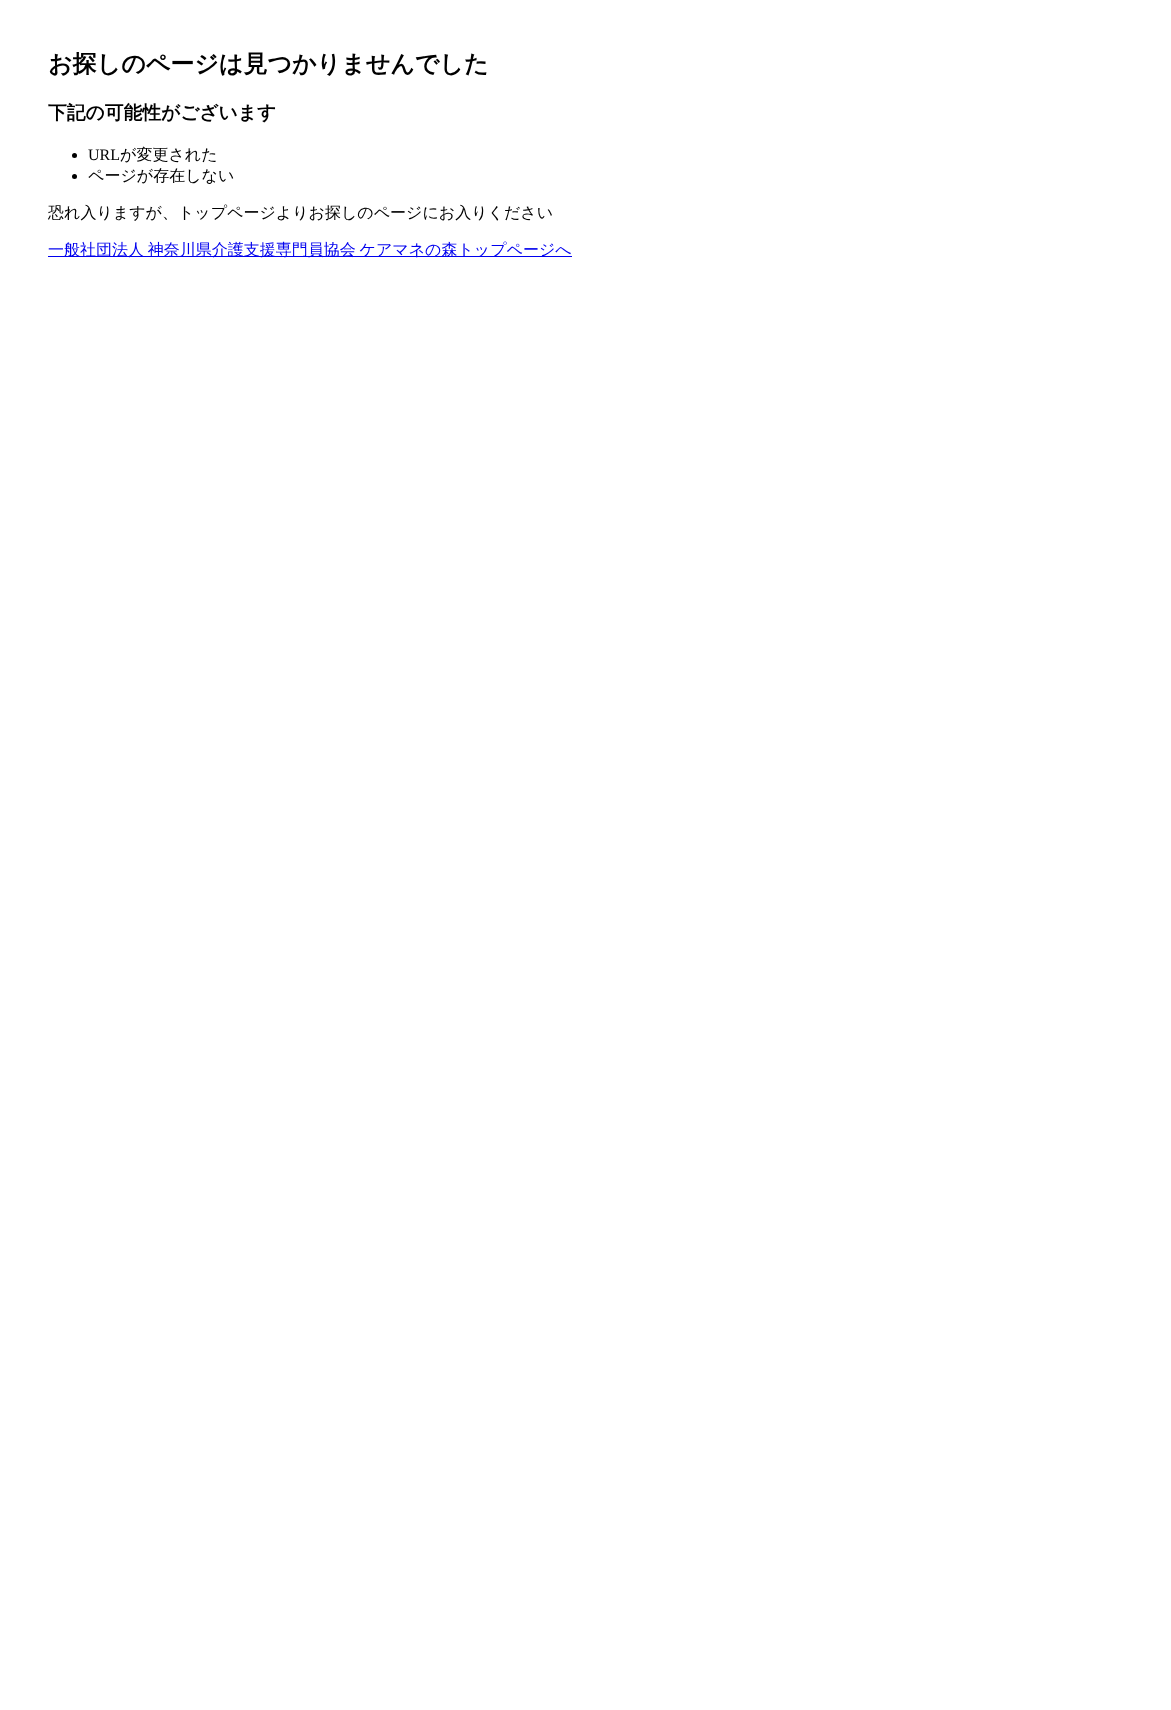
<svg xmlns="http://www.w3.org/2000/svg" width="1171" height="1710">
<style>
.a{font:bold 24px WenQuanYi Zen Hei;fill:#000}
.b{font:bold 18.75px WenQuanYi Zen Hei;fill:#000}
.c{font:16px Liberation Serif;fill:#000}
.d{font:500 16px WenQuanYi Zen Hei;fill:#000}
.e{font:500 16px WenQuanYi Zen Hei;fill:#00e}
</style>
<rect width="100%" height="100%" fill="#fff"/>
<circle fill="#000" cx="74.5" cy="155.5" r="2.5"/>
<circle fill="#000" cx="74.5" cy="176.5" r="2.5"/>
<path fill="#00e" d="M48 256h524v1H48z"/>
<text class="a" x="48" y="72">お探しのページは見つかりませんでした</text>
<text class="b" x="48" y="119">下記の可能性がございます</text>
<text class="c" x="88" y="160">URL</text>
<text class="d" x="120" y="160">が変更された</text>
<text class="d" x="88" y="181">ページが存在しない</text>
<text class="d" x="48" y="218">恐れ入りますが、トップページよりお探しのページにお入りください</text>
<text class="e" x="48" y="255" word-spacing="-1">一般社団法人 神奈川県介護支援専門員協会 ケアマネの森トップページへ</text>
</svg>
